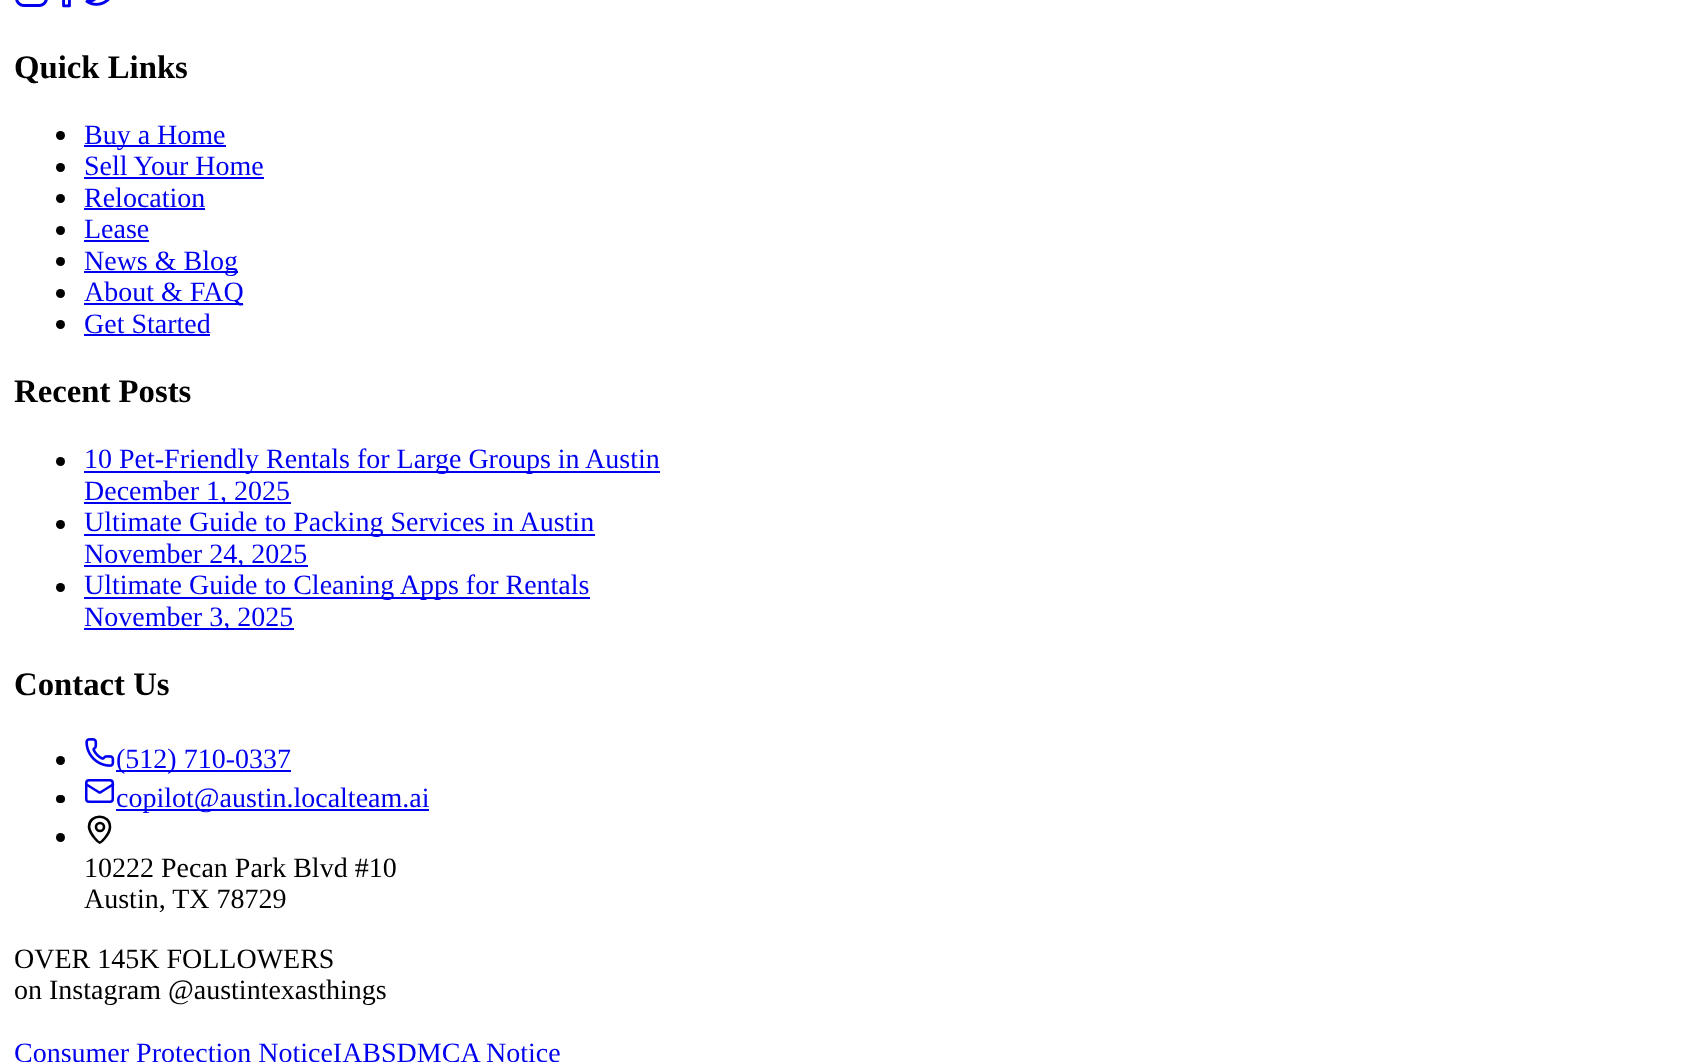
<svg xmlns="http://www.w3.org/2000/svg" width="1689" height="1062">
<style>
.a{font:bold 32.75px Liberation Serif;fill:#000}
.b{font:28px Liberation Serif;fill:#00e}
.c{font:28px Liberation Serif;fill:#000}
</style>
<rect width="100%" height="100%" fill="#fff"/>
<image href="1.png" x="15" y="0" width="33" height="7"/>
<image href="2.png" x="62" y="0" width="9" height="8"/>
<image href="3.png" x="85" y="0" width="25" height="6"/>
<circle fill="#000" cx="60.5" cy="135.5" r="4.5"/>
<path fill="#00e" d="M84 145h142v2H84z"/>
<circle fill="#000" cx="60.5" cy="167.5" r="4.5"/>
<path fill="#00e" d="M84 177h180v2H84z"/>
<circle fill="#000" cx="60.5" cy="198.5" r="4.5"/>
<path fill="#00e" d="M84 208h121v2H84z"/>
<circle fill="#000" cx="60.5" cy="230.5" r="4.5"/>
<path fill="#00e" d="M84 240h65v2H84z"/>
<circle fill="#000" cx="60.5" cy="261.5" r="4.5"/>
<path fill="#00e" d="M84 271h154v2H84z"/>
<circle fill="#000" cx="60.5" cy="293.5" r="4.5"/>
<path fill="#00e" d="M84 303h159v2H84z"/>
<circle fill="#000" cx="60.5" cy="324.5" r="4.5"/>
<path fill="#00e" d="M84 334h126v2H84z"/>
<circle fill="#000" cx="60.5" cy="461.5" r="4.5"/>
<path fill="#00e" d="M84 471h576v2H84z"/>
<path fill="#00e" d="M84 502h207v2H84z"/>
<circle fill="#000" cx="60.5" cy="524.5" r="4.5"/>
<path fill="#00e" d="M84 534h511v2H84z"/>
<path fill="#00e" d="M84 565h224v2H84z"/>
<circle fill="#000" cx="60.5" cy="587.5" r="4.5"/>
<path fill="#00e" d="M84 597h506v2H84z"/>
<path fill="#00e" d="M84 628h210v2H84z"/>
<circle fill="#000" cx="60.5" cy="760.5" r="4.5"/>
<image href="4.png" x="85" y="738" width="30" height="29"/>
<path fill="#00e" d="M116 770h175v2H116z"/>
<rect fill="#000" x="56" y="795" width="9" height="8" rx="4"/>
<path fill="#00e" d="M116 809h313v2H116z"/>
<path fill="none" stroke="#00e" stroke-width="2.6" stroke-linecap="round" stroke-linejoin="round" d="M113 784.5l-12 7.5c-.5 .5-1.5 .5-2.5 0l-12-7.5"/>
<rect fill="none" stroke="#00e" stroke-width="2.5" x="86.25" y="780.25" width="26.5" height="21.5" rx="2.75"/>
<path fill="none" stroke="#000" stroke-width="2.6" stroke-linecap="round" stroke-linejoin="round" d="M110 827c0 4-2.5 8-5.5 11.5c-5 5.5-4.5 5.5-9.5 0c-3-3.5-5.5-7-6-11.5c0-13.5 21-14 21 0"/>
<circle fill="none" stroke="#000" stroke-width="2.6" cx="100" cy="827" r="4"/>
<circle fill="#000" cx="60.5" cy="837.5" r="4.5"/>
<text class="a" x="14" y="78">Quick Links</text>
<text class="b" x="84" y="144">Buy a Home</text>
<text class="b" x="84" y="175">Sell Your Home</text>
<text class="b" x="84" y="207">Relocation</text>
<text class="b" x="84" y="238">Lease</text>
<text class="b" x="84" y="270">News &amp; Blog</text>
<text class="b" x="84" y="301">About &amp; FAQ</text>
<text class="b" x="84" y="333">Get Started</text>
<text class="a" x="14" y="402">Recent Posts</text>
<text class="b" x="84" y="468">10 Pet-Friendly Rentals for Large Groups in Austin</text>
<text class="b" x="84" y="500">December 1, 2025</text>
<text class="b" x="84" y="531">Ultimate Guide to Packing Services in Austin</text>
<text class="b" x="84" y="563">November 24, 2025</text>
<text class="b" x="84" y="594">Ultimate Guide to Cleaning Apps for Rentals</text>
<text class="b" x="84" y="626">November 3, 2025</text>
<text class="a" x="14" y="695">Contact Us</text>
<text class="b" x="116" y="768">(512) 710-0337</text>
<text class="b" x="116" y="807">copilot@austin.localteam.ai</text>
<text class="c" x="84" y="877">10222 Pecan Park Blvd #10</text>
<text class="c" x="84" y="908">Austin, TX 78729</text>
<text class="c" x="14" y="968">OVER 145K FOLLOWERS</text>
<text class="c" x="14" y="999">on Instagram @austintexasthings</text>
<text class="b" x="14" y="1062">Consumer Protection NoticeIABSDMCA Notice</text>
</svg>
